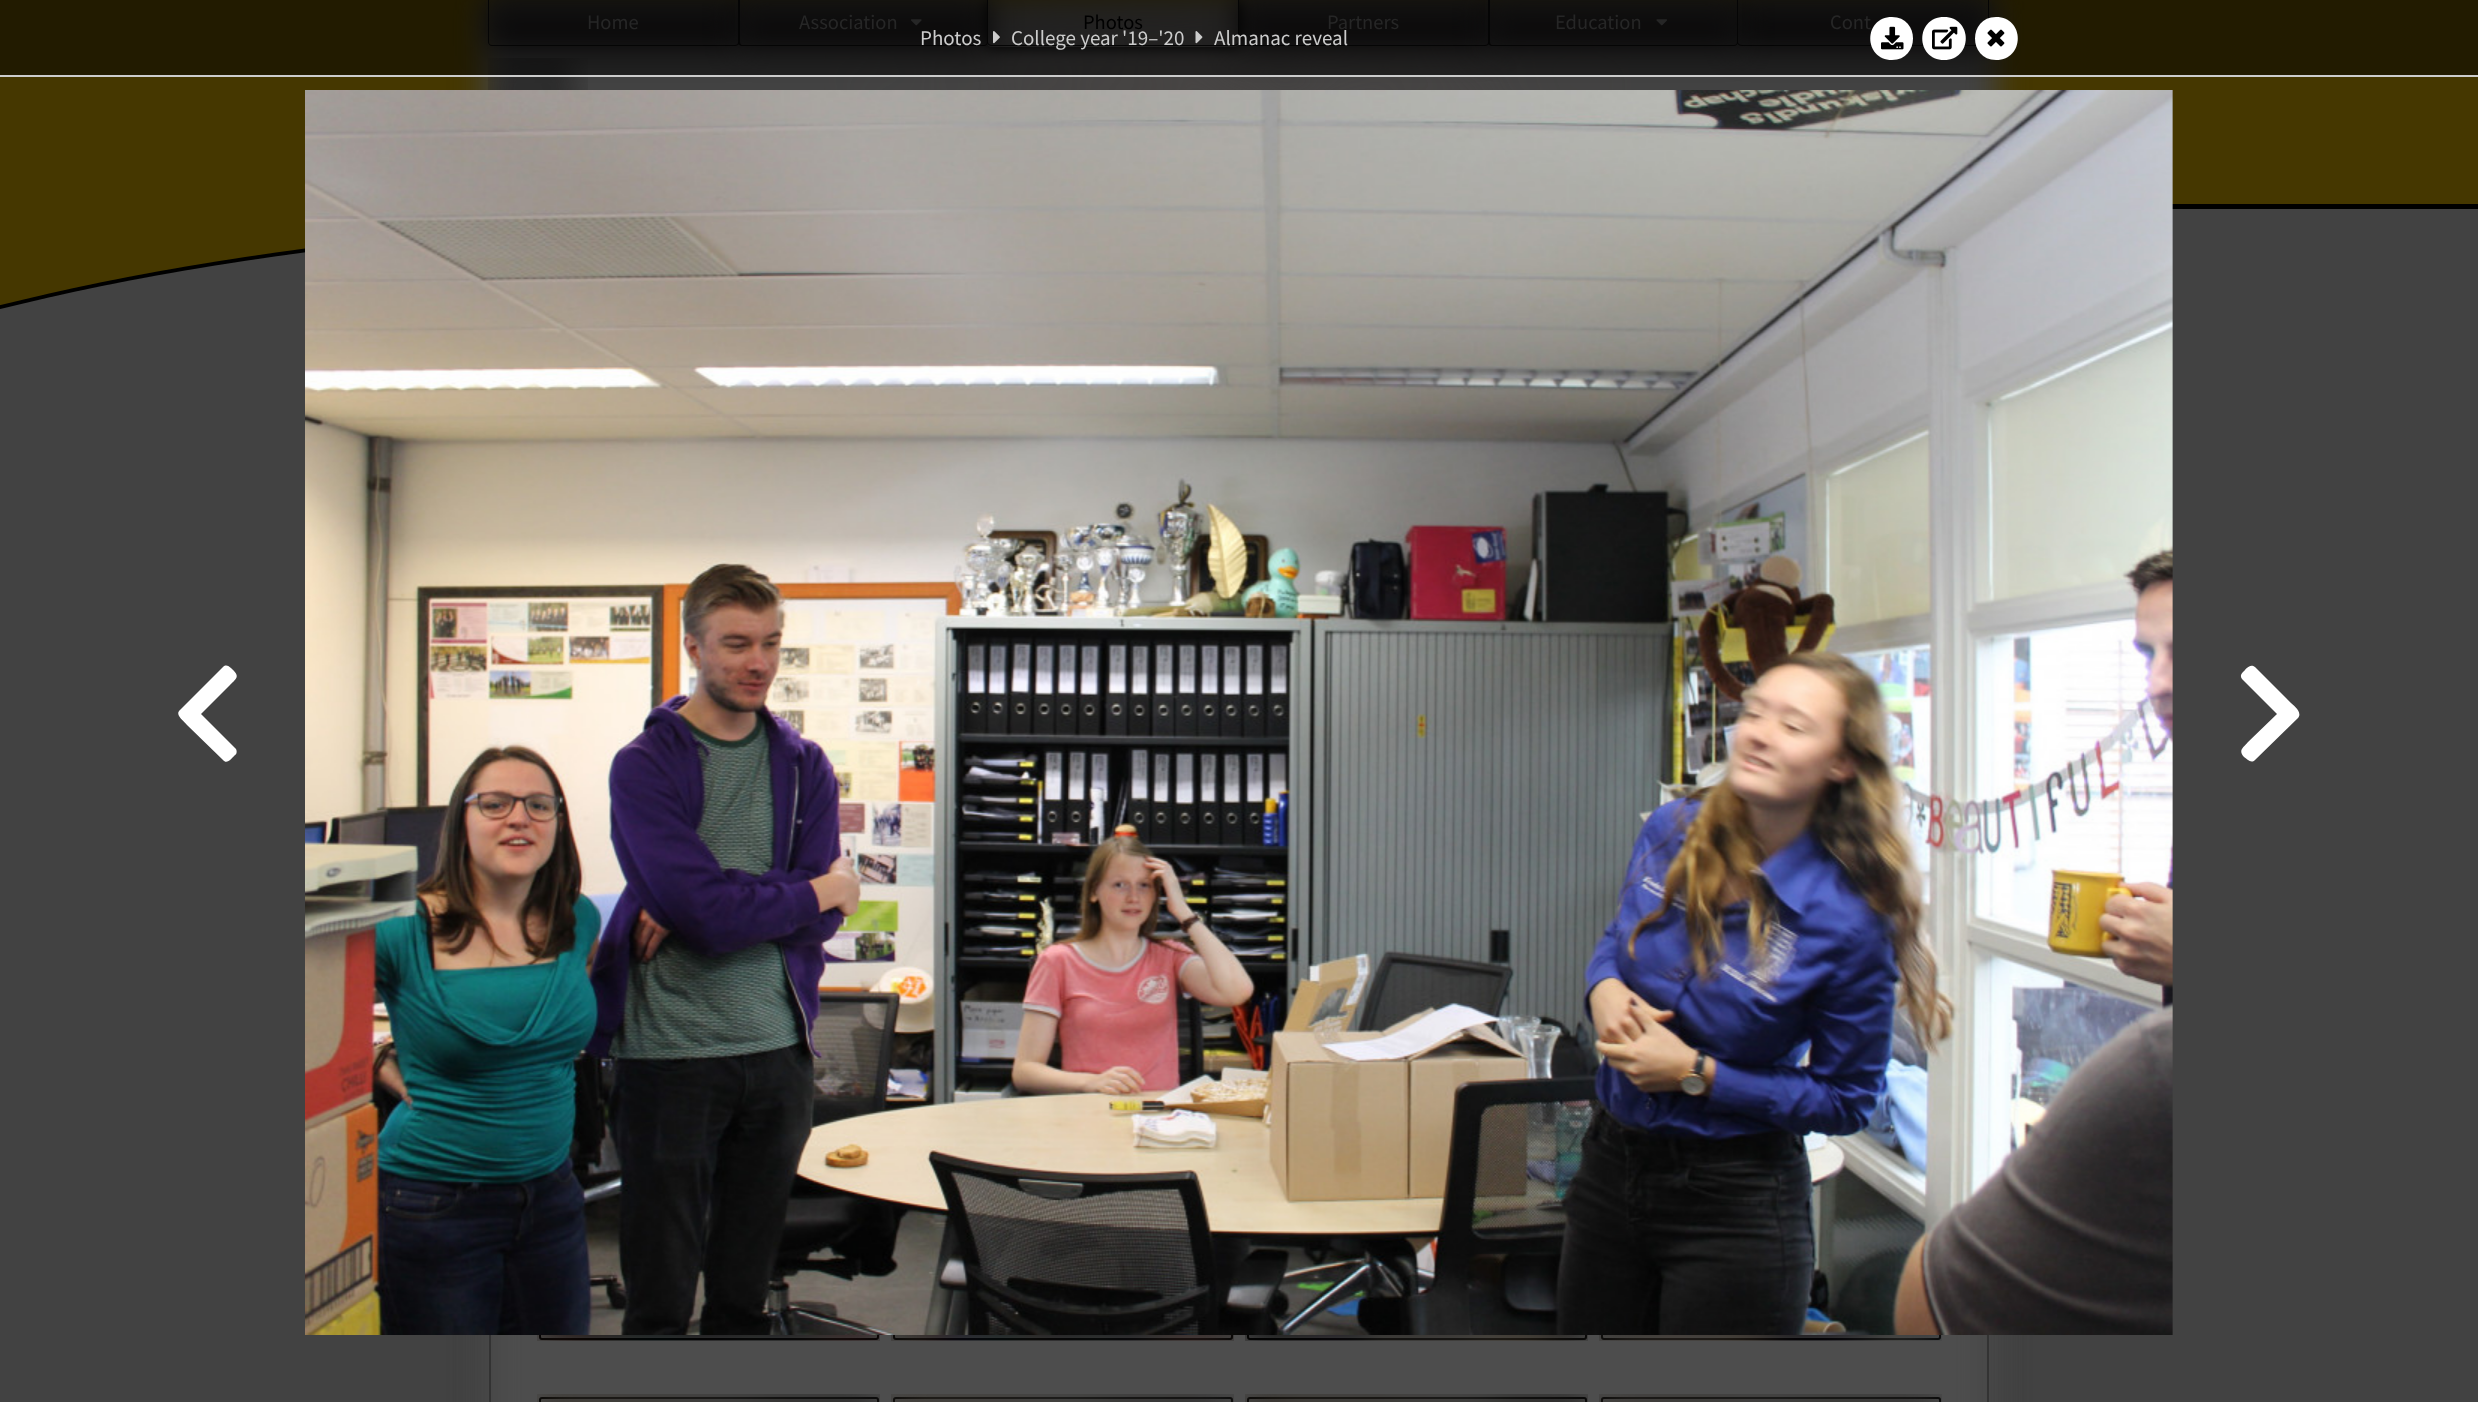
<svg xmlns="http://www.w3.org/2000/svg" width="2478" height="1402">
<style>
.a{font:20.5px Source Sans Pro;fill:#4d4d4d}
.b{font:20.5px Source Sans Pro;fill:#000}
.c{font:21px Source Sans Pro;fill:#ccc}
</style>
<defs>
<clipPath id="clip1"><path d="M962 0h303v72h-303zm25 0h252v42c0 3-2 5-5 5h-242c-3 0-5-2-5-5z" clip-rule="evenodd"/></clipPath>
</defs>
<rect width="100%" height="100%" fill="#424242"/>
<path fill="#453700" d="M0 0h2478v204H0z"/>
<path fill="#000" d="M2172 204h306v5H2172z"/>
<image href="1.png" x="0" y="204" width="305" height="105"/>
<path fill="#424242" filter="blur(15px)" d="M482 0h1515v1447H482z"/>
<image href="2.png" x="824" y="0" width="807" height="90"/>
<rect fill="#0b090a" filter="blur(15px)" x="488" width="252" height="47" rx="5"/>
<image href="3.png" x="486" y="0" width="255" height="46"/>
<path fill="#0a0a0a" fill-rule="evenodd" d="M488 0h252v42c0 2-3 4-5 4h-243c-2 0-4-2-4-4zm1 0h249v42c0 2-1 3-3 3h-243c-2 0-3-1-3-3z"/>
<rect fill="#0b090a" filter="blur(15px)" x="738" width="251" height="47" rx="5"/>
<image href="4.png" x="735" y="0" width="257" height="46"/>
<path fill="#0a0a0a" fill-rule="evenodd" d="M738 0h250v42c0 2-2 4-4 4h-242c-2 0-4-2-4-4zm2 0h247v42c0 2-1 3-3 3h-242c-1 0-2-1-2-3z"/>
<image href="5.png" x="911" y="19" width="11" height="7"/>
<rect fill="#0b090a" filter="blur(15px)" x="1238" width="252" height="47" rx="5"/>
<image href="6.png" x="1236" y="0" width="255" height="46"/>
<path fill="#0a0a0a" fill-rule="evenodd" d="M1238 0h252v42c0 2-3 4-5 4h-243c-2 0-4-2-4-4zm1 0h249v42c0 2-1 3-3 3h-243c-2 0-3-1-3-3z"/>
<g clip-path="url(#clip1)">
<rect fill="#000" filter="blur(7.5px)" x="986" y="-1" width="255" height="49" rx="6"/>
</g>
<path fill="#0a0a0a" fill-rule="evenodd" d="M987 0h252v42c0 2-2 4-5 4h-242c-3 0-5-2-5-4zm1 0h250v42c0 2-2 3-4 3h-242c-2 0-4-1-4-3z"/>
<rect fill="#0b090a" filter="blur(15px)" x="1737" width="252" height="47" rx="5"/>
<image href="9.png" x="1736" y="0" width="256" height="46"/>
<path fill="#0a0a0a" fill-rule="evenodd" d="M1737 0h252v42c0 2-2 4-5 4h-242c-3 0-5-2-5-4zm1 0h250v42c0 2-2 3-4 3h-242c-2 0-4-1-4-3z"/>
<rect fill="#0b090a" filter="blur(15px)" x="1488" width="251" height="47" rx="5"/>
<image href="7.png" x="1485" y="0" width="257" height="46"/>
<path fill="#0a0a0a" fill-rule="evenodd" d="M1488 0h250v42c0 2-2 4-4 4h-242c-2 0-4-2-4-4zm2 0h247v42c0 2-1 3-3 3h-242c-1 0-2-1-2-3z"/>
<image href="8.png" x="1656" y="19" width="11" height="7"/>
<image href="10.png" x="488" y="58" width="100" height="32"/>
<rect fill="#4d4d4d" filter="blur(15px)" x="489" y="501" width="1500" height="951" rx="5"/>
<path fill="none" stroke="#333" stroke-width="2" d="M490 502h1498v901H490z"/>
<rect fill="none" stroke="#000" stroke-width="2" x="540" y="1113" width="338" height="226" rx="2"/>
<image href="11.png" x="537" y="1335" width="343" height="6"/>
<rect fill="none" stroke="#000" stroke-width="2" x="894" y="1113" width="338" height="226" rx="2"/>
<image href="12.png" x="891" y="1335" width="343" height="6"/>
<rect fill="none" stroke="#000" stroke-width="2" x="1248" y="1113" width="338" height="226" rx="2"/>
<image href="13.png" x="1245" y="1335" width="343" height="6"/>
<rect fill="none" stroke="#000" stroke-width="2" x="1602" y="1113" width="338" height="226" rx="2"/>
<image href="14.png" x="1599" y="1335" width="343" height="6"/>
<rect fill="none" stroke="#000" stroke-width="2" x="540" y="1398" width="338" height="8" rx="2"/>
<image href="15.png" x="537" y="1394" width="343" height="8"/>
<rect fill="none" stroke="#000" stroke-width="2" x="894" y="1398" width="338" height="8" rx="2"/>
<image href="16.png" x="891" y="1394" width="343" height="8"/>
<rect fill="none" stroke="#000" stroke-width="2" x="1248" y="1398" width="338" height="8" rx="2"/>
<image href="17.png" x="1245" y="1394" width="343" height="8"/>
<rect fill="none" stroke="#000" stroke-width="2" x="1602" y="1398" width="338" height="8" rx="2"/>
<image href="18.png" x="1599" y="1394" width="343" height="8"/>
<path fill="#ccc" d="M0 75h2478v2H0z"/>
<path fill="#fff" d="M180 710l43-43c4-4 8 1 11 4c6 6 1 9-4 14l-29 29l35 35c1 2 1 5-1 6c-3 3-8 10-12 5l-36-35c-2-3-13-10-7-15z"/>
<image href="24.png" x="305" y="90" width="1868" height="1245"/>
<path fill="#fff" d="M2298 718l-43 42c-4 4-8-1-11-3c-6-7-1-9 4-15l29-28l-35-35c-2-3-1-5 1-7c3-3 7-9 12-5l36 36c2 2 12 9 7 15z"/>
<text class="a" x="587" y="29">Home</text>
<text class="a" x="799" y="29">Association</text>
<text class="b" x="1083" y="29">Photos</text>
<text class="a" x="1327" y="29">Partners</text>
<text class="a" x="1555" y="29">Education</text>
<text class="a" x="1830" y="29">Cont</text>
<path fill="#00000080" d="M0 0h2478v75H0z"/>
<text class="c" x="920" y="45">Photos</text>
<image href="19.png" x="993" y="31" width="7" height="13"/>
<text class="c" x="1011" y="45">College year '19–'20</text>
<image href="20.png" x="1195" y="31" width="8" height="13"/>
<text class="c" x="1214" y="45">Almanac reveal</text>
<path fill="#fff" d="M1892 17c-29 0-29 43 0 43c28 0 28-43 0-43z"/>
<image href="21.png" x="1881" y="26" width="23" height="24"/>
<path fill="#fff" d="M1944 17c-29 0-29 43 0 43c29 0 29-43 0-43z"/>
<image href="22.png" x="1932" y="26" width="26" height="24"/>
<path fill="#fff" d="M1996 17c-28 0-28 43 0 43c29 0 29-43 0-43z"/>
<image href="23.png" x="1987" y="29" width="18" height="18"/>
</svg>
